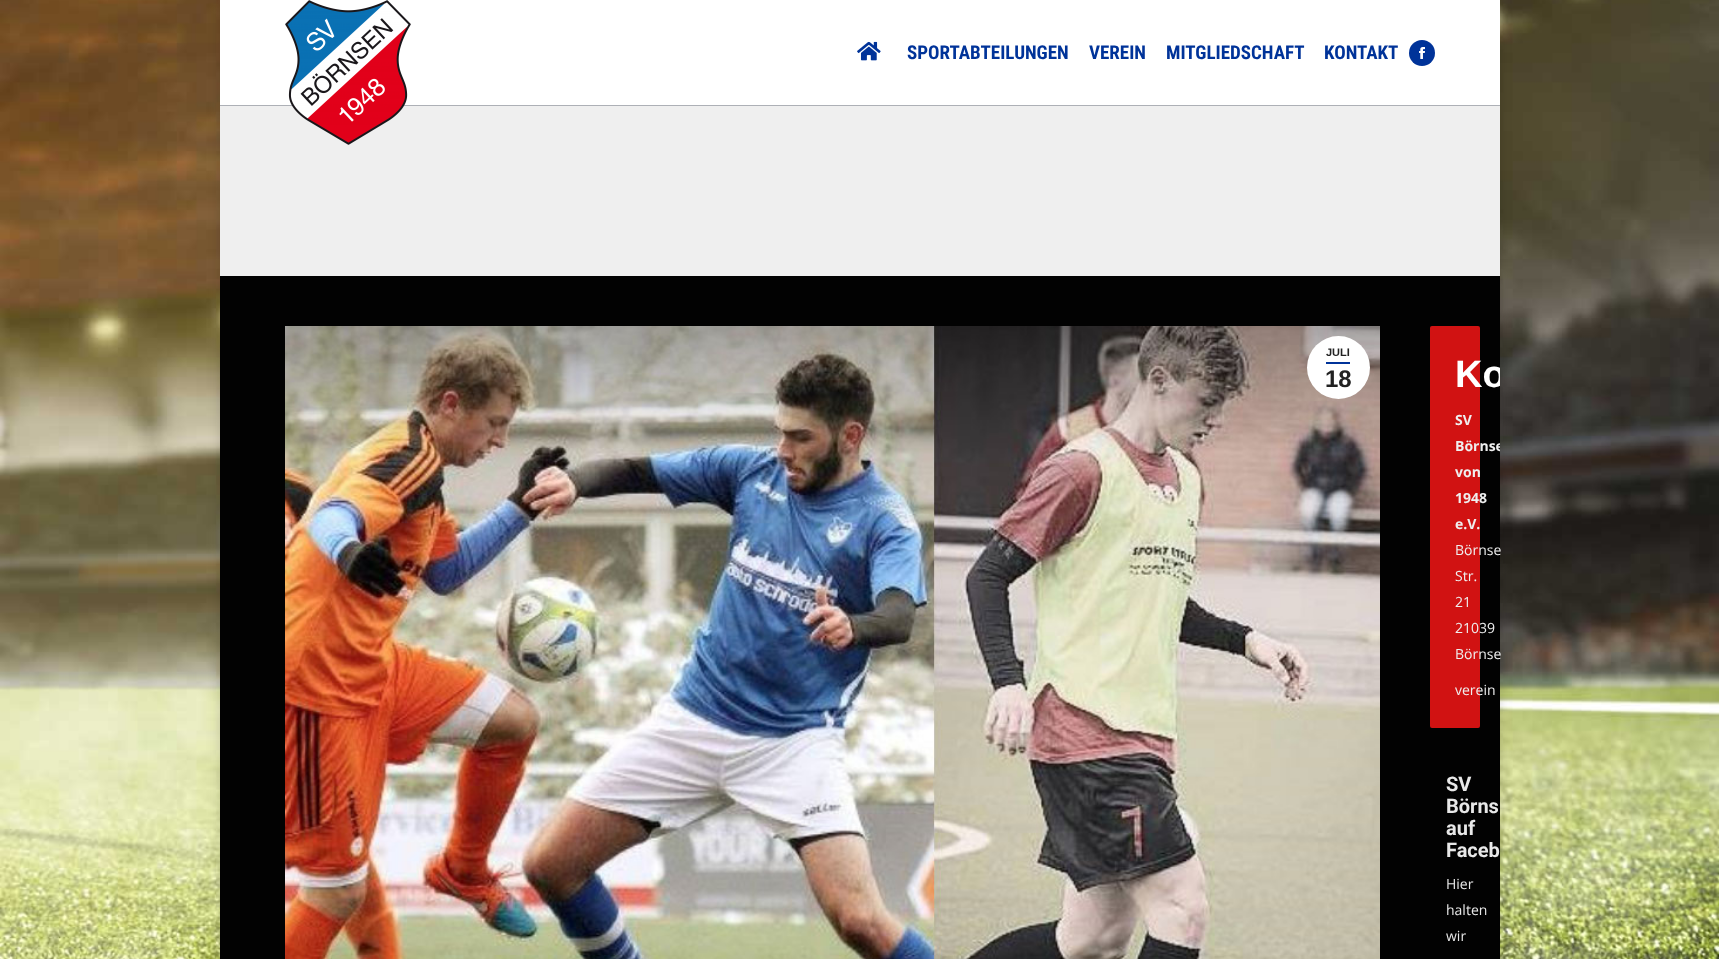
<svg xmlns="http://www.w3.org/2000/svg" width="1719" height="959">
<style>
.a{font:bold 19px Roboto Condensed;fill:#039}
.b{font:bold 11px Liberation Sans;fill:#222}
.c{font:bold 24px Liberation Sans;fill:#222}
.d{font:bold 38px Liberation Sans;fill:#fff}
.e{font:bold 14px Open Sans;fill:#efefef}
.f{font:14px Open Sans;fill:#efefef}
.g{font:bold 20px Roboto;fill:#e8e8e8}
.h{font:14px Open Sans;fill:#e8e8e8}
</style>
<defs>
<clipPath id="clip1"><path d="M220 0h1280v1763H220z"/></clipPath>
</defs>
<rect width="100%" height="100%" fill="#fff"/>
<image href="1.png" x="0" y="0" width="1719" height="959"/>
<path fill="#00000026" filter="blur(6px)" d="M220 0h1280v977H220z"/>
<path fill="#020202" d="M220 276h1280v683H220z"/>
<path fill="#fff" d="M220 0h1280v105H220z"/>
<path fill="#adb0b6" d="M220 105h1280v1H220z"/>
<path fill="#efefef" d="M220 106h1280v170H220z"/>
<image href="2.png" x="285" y="0" width="126" height="145"/>
<image href="3.png" x="857" y="41" width="24" height="20"/>
<circle fill="#039" cx="1422" cy="53" r="13"/>
<image href="4.png" x="1419" y="47" width="6" height="12"/>
<image href="5.png" x="285" y="326" width="1095" height="633"/>
<circle fill="#fff" cx="1338.5" cy="367.5" r="31.5"/>
<path fill="#039" d="M1326 362h24v2H1326z"/>
<rect fill="#d11212" x="1430" y="326" width="50" height="402" rx="2"/>
<text class="a" x="907" y="59">SPORTABTEILUNGEN</text>
<text class="a" x="1089" y="59">VEREIN</text>
<text class="a" x="1166" y="59">MITGLIEDSCHAFT</text>
<text class="a" x="1324" y="59">KONTAKT</text>
<text class="b" x="1326" y="356">JULI</text>
<text class="c" x="1325" y="387">18</text>
<g clip-path="url(#clip1)">
<text class="d" x="1455" y="387">Ko</text>
</g>
<text class="e" x="1455" y="425">SV</text>
<g clip-path="url(#clip1)">
<text class="e" x="1455" y="451">Börnse</text>
</g>
<text class="e" x="1455" y="477">von</text>
<text class="e" x="1455" y="503">1948</text>
<text class="e" x="1455" y="529">e.V.</text>
<text class="f" x="1455" y="555">Börnse</text>
<text class="f" x="1455" y="581">Str.</text>
<text class="f" x="1455" y="607">21</text>
<text class="f" x="1455" y="633">21039</text>
<text class="f" x="1455" y="659">Börnse</text>
<text class="f" x="1455" y="695">verein</text>
<text class="g" x="1446" y="791">SV</text>
<text class="g" x="1446" y="813">Börns</text>
<text class="g" x="1446" y="835">auf</text>
<text class="g" x="1446" y="857">Faceb</text>
<text class="h" x="1446" y="889">Hier</text>
<text class="h" x="1446" y="915">halten</text>
<text class="h" x="1446" y="941">wir</text>
</svg>
